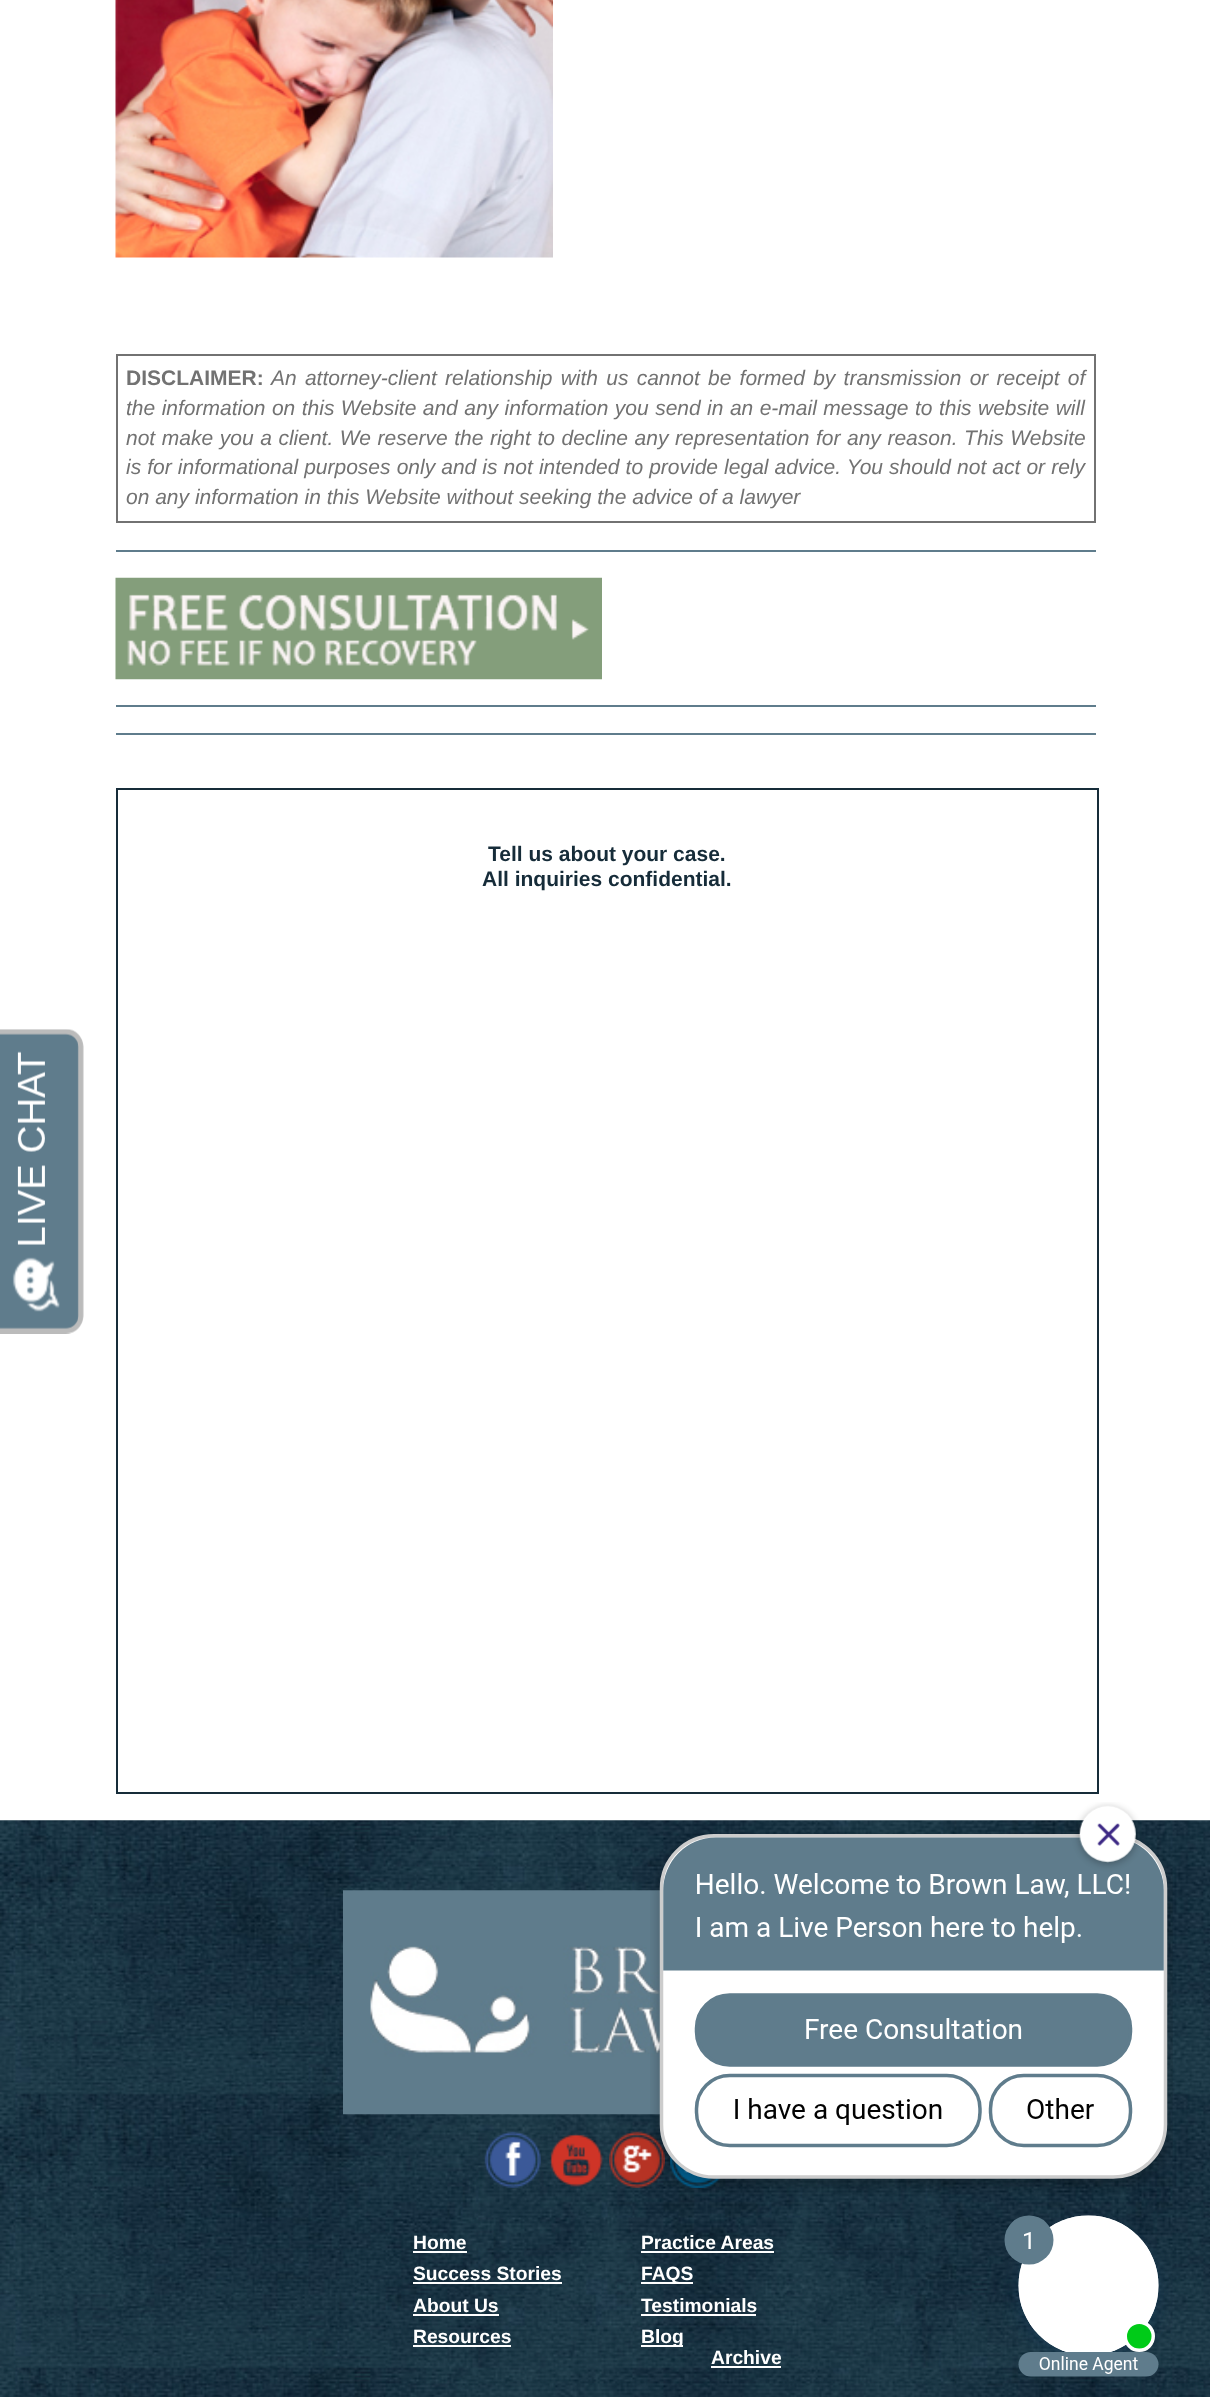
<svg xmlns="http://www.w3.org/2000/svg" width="1210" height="2397">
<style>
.a{font:bold 21px Liberation Sans;fill:#727272}
.b{font:italic 21px Liberation Sans;fill:#727272}
.c{font:bold 21px Liberation Sans;fill:#162c39}
.d{font:bold 19.25px Liberation Sans;fill:#fff}
</style>
<rect width="100%" height="100%" fill="#fff"/>
<image href="1.png" x="115" y="0" width="438" height="258"/>
<path fill="none" stroke="#727272" stroke-width="2" d="M117 355h978v167H117z"/>
<path fill="#5f7c8c" d="M116 550h980v2H116z"/>
<path fill="#5f7c8c" d="M116 705h980v2H116z"/>
<image href="2.png" x="115" y="577" width="487" height="103"/>
<path fill="#5f7c8c" d="M116 733h980v2H116z"/>
<path fill="none" stroke="#162c39" stroke-width="2" d="M117 789h981v1004H117z"/>
<image href="3.png" x="0" y="1029" width="84" height="305"/>
<image href="4.png" x="0" y="1820" width="1210" height="577"/>
<image href="5.png" x="343" y="1890" width="317" height="225"/>
<image href="6.png" x="484" y="2131" width="57" height="57"/>
<image href="7.png" x="549" y="2133" width="54" height="54"/>
<image href="8.png" x="609" y="2131" width="56" height="57"/>
<image href="9.png" x="670" y="2156" width="52" height="32"/>
<path fill="#fff" d="M413 2251h54v2H413z"/>
<path fill="#fff" d="M641 2251h133v2H641z"/>
<path fill="#fff" d="M413 2282h149v2H413z"/>
<path fill="#fff" d="M641 2282h52v2H641z"/>
<path fill="#fff" d="M413 2314h86v2H413z"/>
<path fill="#fff" d="M641 2314h115v2H641z"/>
<path fill="#fff" d="M413 2345h98v2H413z"/>
<path fill="#fff" d="M641 2345h42v2H641z"/>
<path fill="#fff" d="M711 2366h70v2H711z"/>
<text class="a" x="126" y="385">DISCLAIMER:</text>
<text class="b" x="271" y="385" word-spacing="2.4">An attorney-client relationship with us cannot be formed by transmission or receipt of</text>
<text class="b" x="126" y="415" word-spacing="0.6">the information on this Website and any information you send in an e-mail message to this website will</text>
<text class="b" x="126" y="445" word-spacing="0.75">not make you a client. We reserve the right to decline any representation for any reason. This Website</text>
<text class="b" x="126" y="474" word-spacing="0.25">is for informational purposes only and is not intended to provide legal advice. You should not act or rely</text>
<text class="b" x="126" y="504">on any information in this Website without seeking the advice of a lawyer</text>
<text class="c" x="488" y="861">Tell us about your case.</text>
<text class="c" x="482" y="886">All inquiries confidential.</text>
<text class="d" x="413" y="2249">Home</text>
<text class="d" x="641" y="2249">Practice Areas</text>
<text class="d" x="413" y="2280">Success Stories</text>
<text class="d" x="641" y="2280">FAQS</text>
<text class="d" x="413" y="2312">About Us</text>
<text class="d" x="641" y="2312">Testimonials</text>
<text class="d" x="413" y="2343">Resources</text>
<text class="d" x="641" y="2343">Blog</text>
<text class="d" x="711" y="2364">Archive</text>
<image href="10.png" x="650" y="1802" width="523" height="575"/>
</svg>
